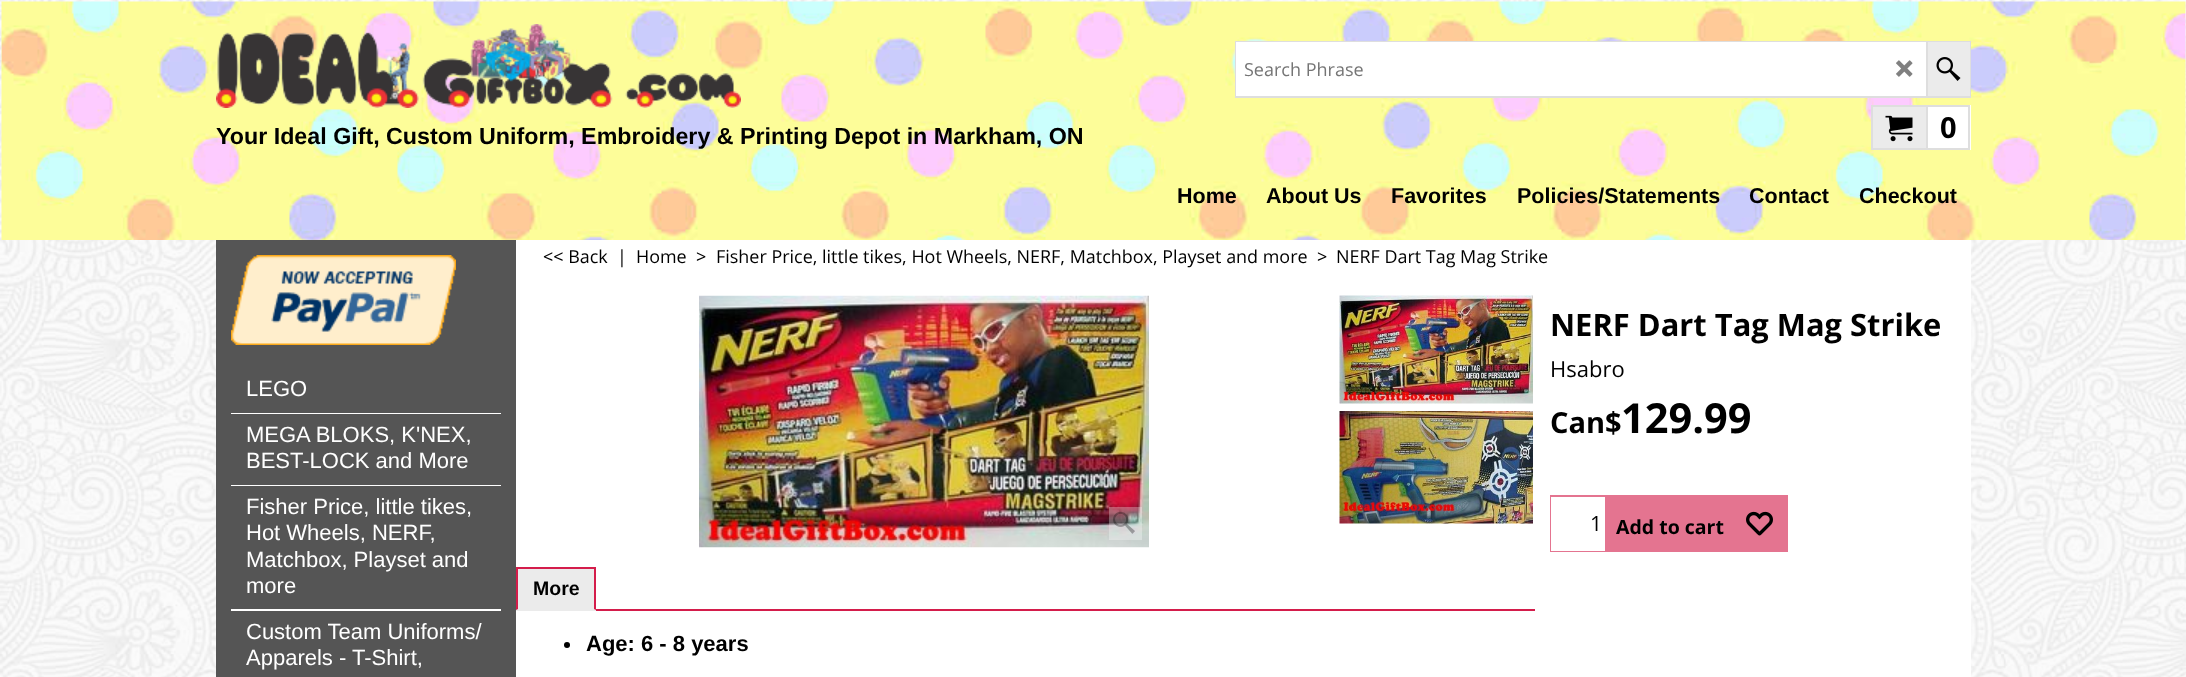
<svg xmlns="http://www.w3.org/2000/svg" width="2186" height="677">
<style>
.a{font:bold 23.25px Liberation Sans;fill:#000}
.b{font:18px Open Sans;fill:#757575}
.c{font:bold 29px Open Sans;fill:#000}
.d{font:bold 21.5px Liberation Sans;fill:#000}
.e{font:22px Liberation Sans;fill:#fff}
.f{font:17.95px Open Sans;fill:#000}
.g{font:bold 30.9px Open Sans;fill:#000}
.h{font:22px Open Sans;fill:#000}
.i{font:bold 41.5px Open Sans;fill:#000}
.j{font:21px Open Sans;fill:#000}
.k{font:bold 19.5px Open Sans;fill:#000}
.l{font:bold 19.5px Liberation Sans;fill:#000}
.m{font:bold 22px Liberation Sans;fill:#000}
</style>
<rect width="100%" height="100%" fill="#fff"/>
<image href="1.png" x="0" y="0" width="2186" height="677"/>
<image href="2.png" x="1" y="1" width="2185" height="239"/>
<image href="3.png" x="216" y="24" width="525" height="84"/>
<path fill="none" stroke="#dedede" stroke-width="2" d="M1236 42h734v55H1236z"/>
<path fill="#fff" d="M1236 42h690v54H1236z"/>
<image href="4.png" x="1896" y="60" width="17" height="17"/>
<path fill="#ebebeb" d="M1928 42h42v54H1928z"/>
<path fill="#dedede" d="M1926 42h2v54H1926z"/>
<image href="5.png" x="1936" y="57" width="25" height="24"/>
<path fill="#fff" d="M1928 105h43v45H1928z"/>
<path fill="#ebebeb" stroke="#dedede" stroke-width="2" d="M1872 106h55v43H1872z"/>
<image href="6.png" x="1885" y="115" width="28" height="27"/>
<path fill="none" stroke="#dedede" stroke-width="2" d="M1927 106h42v43H1927z"/>
<path fill="#fff" d="M516 240h1455v437H516z"/>
<path fill="#555" d="M216 240h300v437H216z"/>
<image href="7.png" x="231" y="255" width="225" height="90"/>
<path fill="#fff" d="M231 413h270v1H231z"/>
<path fill="#fff" d="M231 485h270v1H231z"/>
<path fill="#fff" d="M231 609h270v2H231z"/>
<image href="8.png" x="699" y="295" width="450" height="253"/>
<path fill="#ffffff4d" d="M1109 507h33v33H1109z"/>
<image href="9.png" x="1113" y="511" width="22" height="23"/>
<image href="10.png" x="1339" y="295" width="194" height="109"/>
<image href="11.png" x="1339" y="411" width="194" height="113"/>
<path fill="#e47490" d="M1550 495h238v57H1550z"/>
<path fill="#fff" d="M1551 497h54v54H1551z"/>
<image href="12.png" x="1746" y="511" width="27" height="25"/>
<path fill="#ebebeb" d="M516 569h80v42H516z"/>
<path fill="#d41d4b" d="M516 567h80v2H516z"/>
<path fill="#d41d4b" d="M596 567v43l-2-1v-41z"/>
<path fill="#d41d4b" d="M516 610v-43l2 1v41z"/>
<path fill="#d41d4b" d="M596 609h939v2H596z"/>
<circle fill="#000" cx="567" cy="645" r="3"/>
<text class="a" x="216" y="144">Your Ideal Gift, Custom Uniform, Embroidery &amp; Printing Depot in Markham, ON</text>
<text class="b" x="1244" y="76">Search Phrase</text>
<text class="c" x="1940" y="138">0</text>
<text class="d" x="1177" y="203">Home</text>
<text class="d" x="1266" y="203">About Us</text>
<text class="d" x="1391" y="203">Favorites</text>
<text class="d" x="1517" y="203">Policies/Statements</text>
<text class="d" x="1749" y="203">Contact</text>
<text class="d" x="1859" y="203">Checkout</text>
<text class="e" x="246" y="396">LEGO</text>
<text class="e" x="246" y="442">MEGA BLOKS, K'NEX,</text>
<text class="e" x="246" y="468">BEST-LOCK and More</text>
<text class="e" x="246" y="514">Fisher Price, little tikes,</text>
<text class="e" x="246" y="540">Hot Wheels, NERF,</text>
<text class="e" x="246" y="567">Matchbox, Playset and</text>
<text class="e" x="246" y="593">more</text>
<text class="e" x="246" y="639">Custom Team Uniforms/</text>
<text class="e" x="246" y="665">Apparels - T-Shirt,</text>
<text class="f" x="543" y="263">&lt;&lt; Back</text>
<text class="f" x="617" y="263">|</text>
<text class="f" x="636" y="263">Home</text>
<text class="f" x="696" y="263">&gt;</text>
<text class="f" x="716" y="263">Fisher Price, little tikes, Hot Wheels, NERF, Matchbox, Playset and more</text>
<text class="f" x="1317" y="263">&gt;</text>
<text class="f" x="1336" y="263">NERF Dart Tag Mag Strike</text>
<text class="g" x="1550" y="336">NERF Dart Tag Mag Strike</text>
<text class="h" x="1550" y="377">Hsabro</text>
<text class="c" x="1550" y="433">Can$</text>
<text class="i" x="1621" y="433">129.99</text>
<text class="j" x="1590" y="531">1</text>
<text class="k" x="1616" y="534">Add to cart</text>
<text class="l" x="533" y="595">More</text>
<text class="m" x="586" y="651">Age: 6 - 8 years</text>
</svg>
